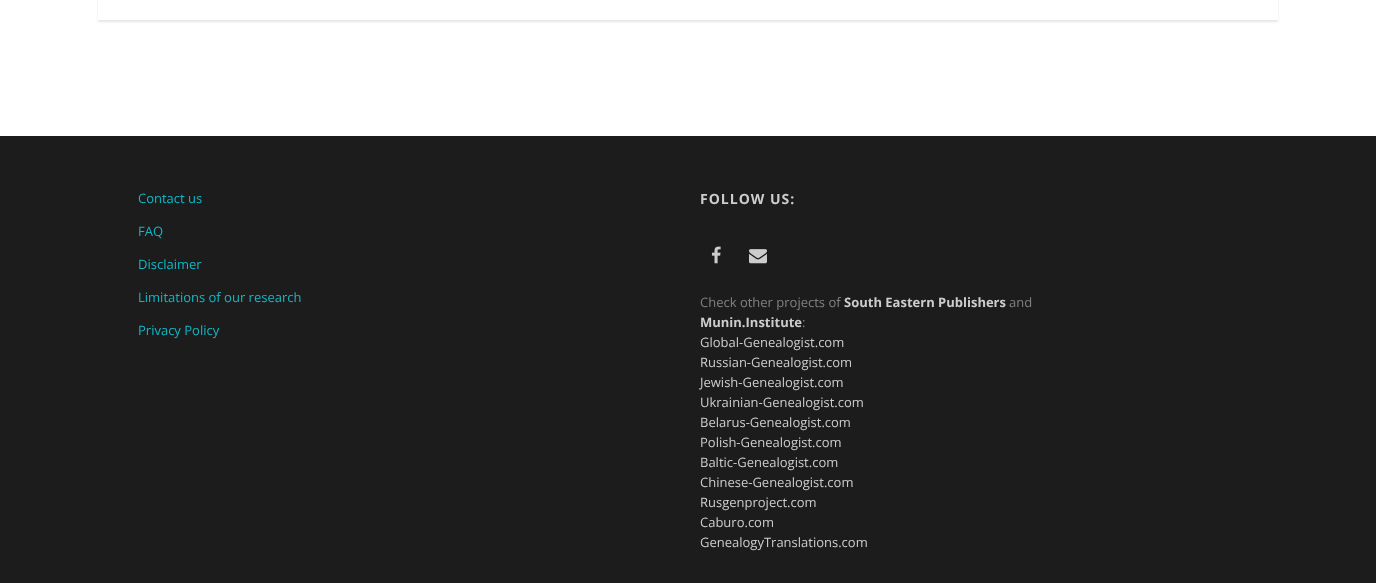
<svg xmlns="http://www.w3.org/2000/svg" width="1376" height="583">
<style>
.a{font:13px Open Sans;fill:#10b8c7}
.b{font:bold 14px Open Sans;letter-spacing:1px;fill:#cdcdcd}
.c{font:13px Open Sans;fill:#818181}
.d{font:bold 13px Open Sans;fill:#cdcdcd}
.e{font:13px Open Sans;fill:#cdcdcd}
</style>
<defs>
<clipPath id="clip1"><path d="M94 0h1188v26h-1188zm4-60h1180v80h-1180z" clip-rule="evenodd"/></clipPath>
</defs>
<rect width="100%" height="100%" fill="#fff"/>
<g clip-path="url(#clip1)">
<path fill="#0000001a" filter="blur(1px)" d="M98 -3h1180v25H98z"/>
</g>
<path fill="#1c1c1c" d="M0 136h1376v447H0z"/>
<image href="1.png" x="711" y="246" width="10" height="18"/>
<image href="2.png" x="749" y="249" width="18" height="15"/>
<text class="a" x="138" y="203">Contact us</text>
<text class="a" x="138" y="236">FAQ</text>
<text class="a" x="138" y="269">Disclaimer</text>
<text class="a" x="138" y="302">Limitations of our research</text>
<text class="a" x="138" y="335">Privacy Policy</text>
<text class="b" x="700" y="204">FOLLOW US:</text>
<text class="c" x="700" y="307">Check other projects of</text>
<text class="d" x="844" y="307">South Eastern Publishers</text>
<text class="c" x="1009" y="307">and</text>
<text class="d" x="700" y="327">Munin.Institute</text>
<text class="c" x="802" y="327">:</text>
<text class="e" x="700" y="347">Global-Genealogist.com</text>
<text class="e" x="700" y="367">Russian-Genealogist.com</text>
<text class="e" x="700" y="387">Jewish-Genealogist.com</text>
<text class="e" x="700" y="407">Ukrainian-Genealogist.com</text>
<text class="e" x="700" y="427">Belarus-Genealogist.com</text>
<text class="e" x="700" y="447">Polish-Genealogist.com</text>
<text class="e" x="700" y="467">Baltic-Genealogist.com</text>
<text class="e" x="700" y="487">Chinese-Genealogist.com</text>
<text class="e" x="700" y="507">Rusgenproject.com</text>
<text class="e" x="700" y="527">Caburo.com</text>
<text class="e" x="700" y="547">GenealogyTranslations.com</text>
</svg>
